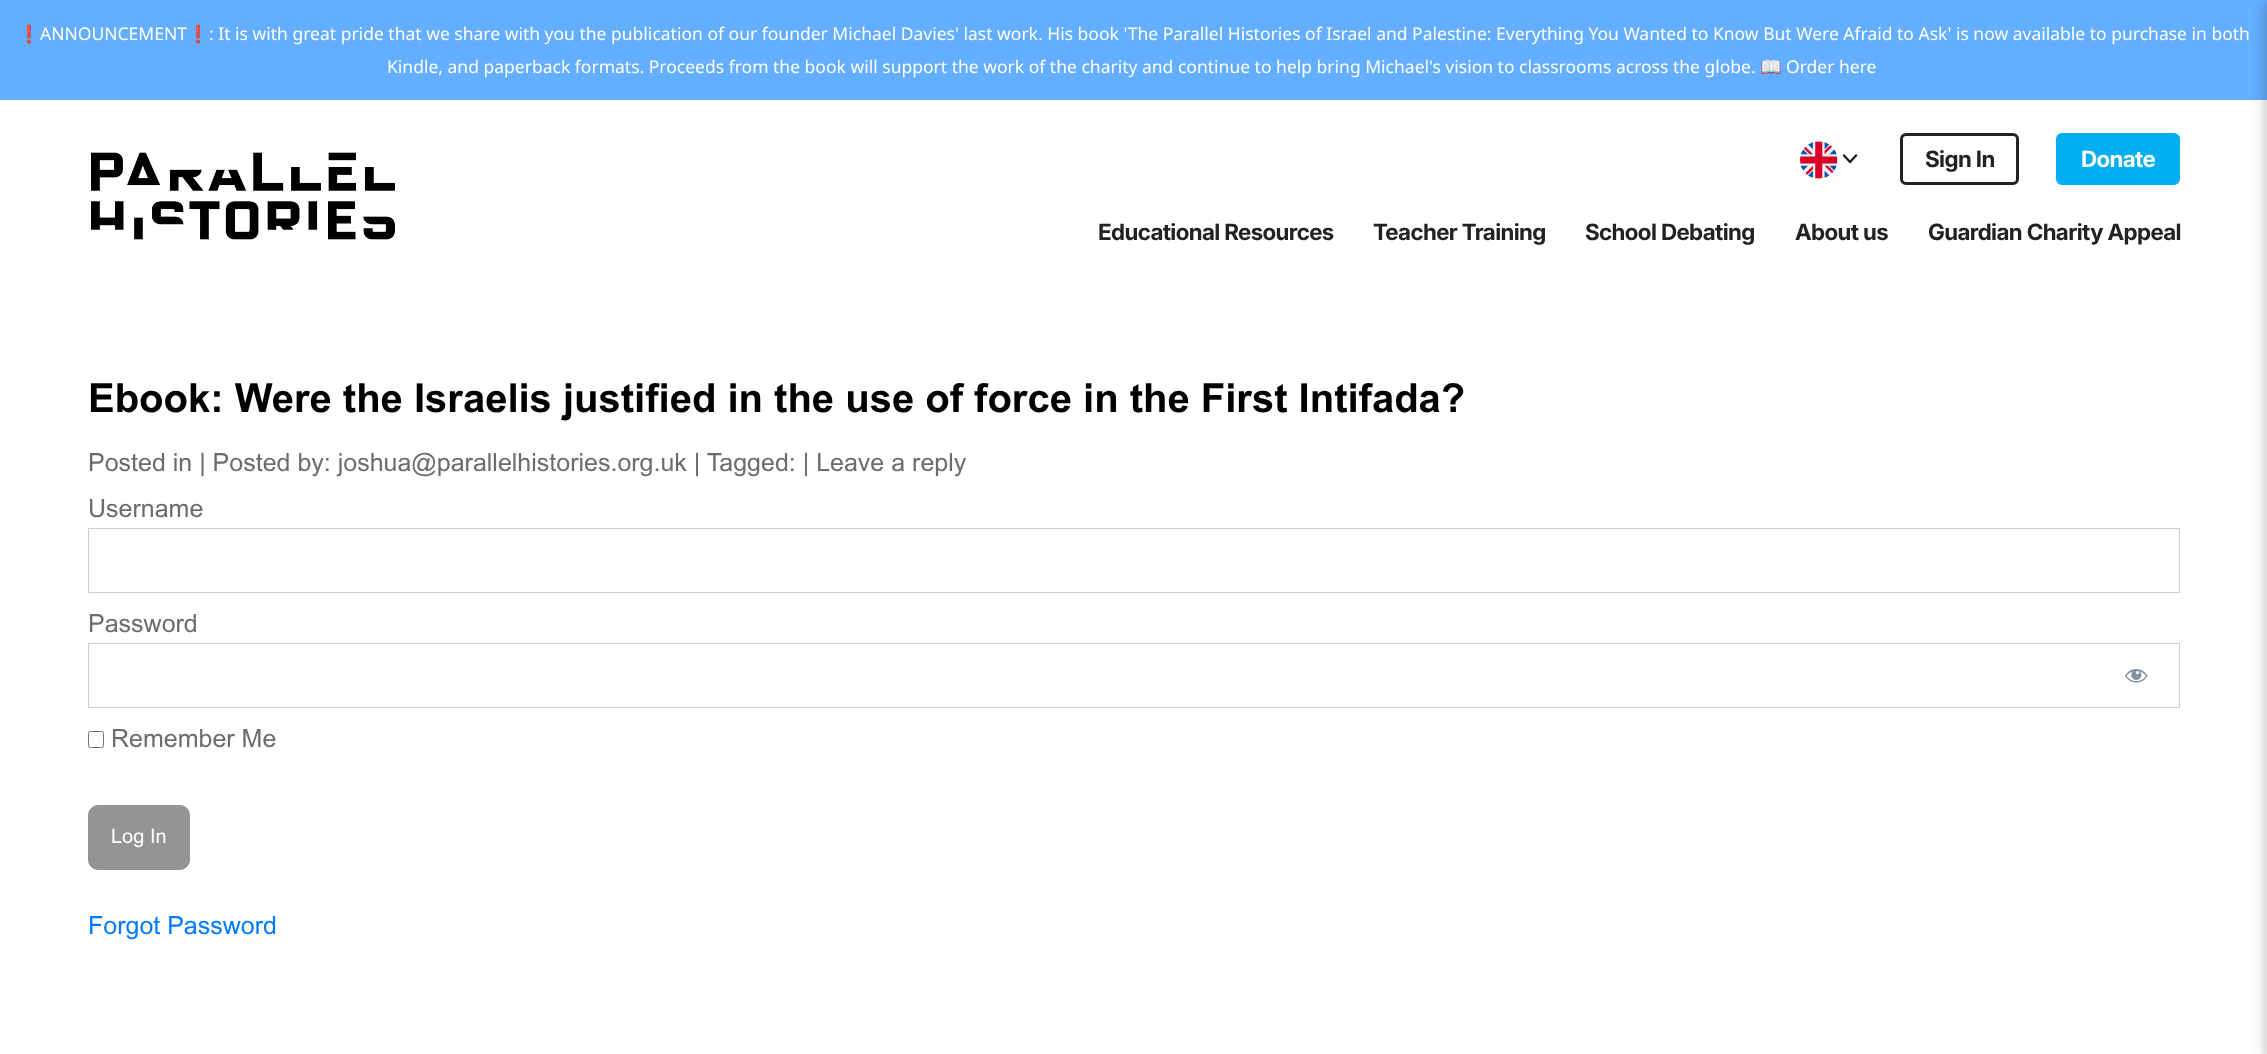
<svg xmlns="http://www.w3.org/2000/svg" width="2267" height="1054">
<style>
.a{font:17.5px Noto Color Emoji;fill:#fff}
.b{font:17.5px Noto Sans;fill:#fff}
.c{font:bold 22.5px Inter;letter-spacing:-0.6px;fill:#222}
.d{font:bold 22.5px Inter;letter-spacing:-0.6px;fill:#fff}
.e{font:bold 40px Arial;fill:#000}
.f{font:25px Arial;fill:#6b6c6f}
.g{font:20px Arial;fill:#fff}
.h{font:25px Arial;fill:#007bff}
</style>
<rect width="100%" height="100%" fill="#fff"/>
<path fill="#63aeff" d="M0 0h2267v100H0z"/>
<path fill="#00000033" filter="blur(5.5px)" d="M2264 4h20v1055H2264z"/>
<image href="1.png" x="91" y="152" width="304" height="88"/>
<image href="2.png" x="1800" y="141" width="38" height="38"/>
<path fill="none" stroke="#222" stroke-width="2.5" stroke-linecap="round" stroke-linejoin="round" d="M1844 155.5l6 6.5l6-6.5"/>
<rect fill="none" stroke="#222" stroke-width="3" x="1901.5" y="134.5" width="116" height="49" rx="4.5"/>
<rect fill="#01aef0" stroke="#01aef0" stroke-width="3" x="2057.5" y="134.5" width="121" height="49" rx="4.5"/>
<path fill="none" stroke="#ccc" d="M88.5 528.5h2091v64H88.5z"/>
<path fill="none" stroke="#ccc" d="M88.5 643.5h2091v64H88.5z"/>
<image href="3.png" x="2125" y="669" width="23" height="14"/>
<rect fill="none" stroke="#767676" x="88.5" y="731.5" width="15" height="16" rx="2"/>
<rect fill="#949494" stroke="#949494" x="88.5" y="805.5" width="101" height="64" rx="9.5"/>
<text class="a" x="18" y="40">❗️</text>
<text class="b" x="40" y="40">ANNOUNCEMENT</text>
<text class="a" x="187" y="40">❗️</text>
<text class="b" x="209" y="40">: It is with great pride that we share with you the publication of our founder Michael Davies' last work. His book 'The Parallel Histories of Israel and Palestine: Everything You Wanted to Know But Were Afraid to Ask' is now available to purchase in both</text>
<text class="b" x="387" y="73">Kindle, and paperback formats. Proceeds from the book will support the work of the charity and continue to help bring Michael's vision to classrooms across the globe.</text>
<text class="a" x="1760" y="73">📖</text>
<text class="b" x="1786" y="73">Order here</text>
<text class="c" x="1925" y="167">Sign In</text>
<text class="d" x="2081" y="167">Donate</text>
<text class="c" x="1098" y="240">Educational Resources</text>
<text class="c" x="1373" y="240">Teacher Training</text>
<text class="c" x="1585" y="240">School Debating</text>
<text class="c" x="1795" y="240">About us</text>
<text class="c" x="1928" y="240">Guardian Charity Appeal</text>
<text class="e" x="88" y="412">Ebook: Were the Israelis justified in the use of force in the First Intifada?</text>
<text class="f" x="88" y="471">Posted in | Posted by: joshua@parallelhistories.org.uk | Tagged: | Leave a reply</text>
<text class="f" x="88" y="517">Username</text>
<text class="f" x="88" y="632">Password</text>
<text class="f" x="111" y="747">Remember Me</text>
<text class="g" x="111" y="843">Log In</text>
<text class="h" x="88" y="934">Forgot Password</text>
</svg>
